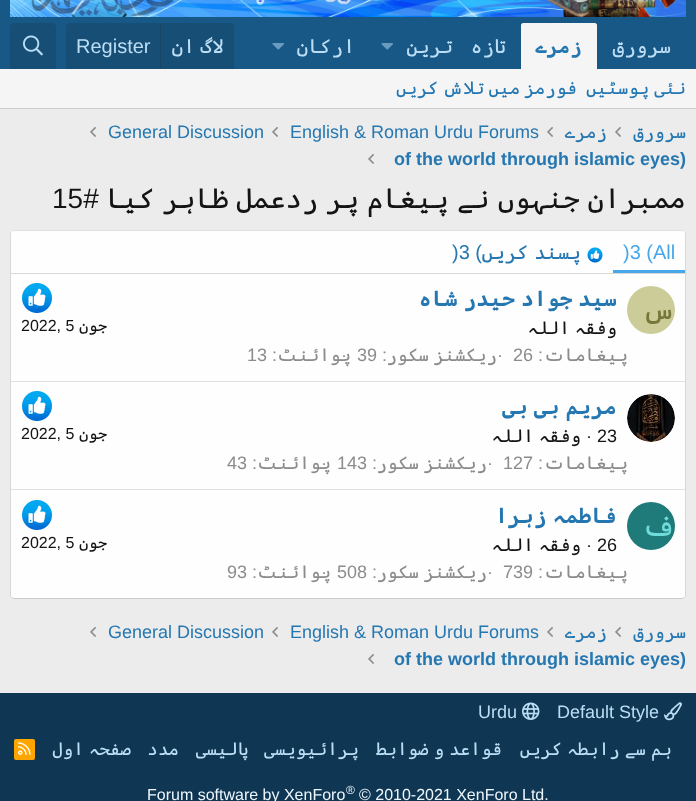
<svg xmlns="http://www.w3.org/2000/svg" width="696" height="801">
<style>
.a{font:20px Cascadia Code;direction:rtl;fill:#bcdef5}
.b{font:bold 20px Cascadia Code;direction:rtl;fill:#2577b1}
.c{font:20px Liberation Sans;fill:#bcdef5}
.d{font:18px Cascadia Code;direction:rtl;fill:#2577b1}
.e{font:18px Liberation Sans;fill:#2577b1}
.f{font:bold 18px Liberation Sans;fill:#2577b1}
.g{font:28px Cascadia Code;direction:rtl;fill:#141414}
.h{font:28px Liberation Sans;fill:#141414}
.i{font:20px Liberation Sans;fill:#47a7eb}
.j{font:20px Cascadia Code;direction:rtl;fill:#2577b1}
.k{font:20px Liberation Sans;fill:#2577b1}
.l{font:29px Cascadia Code;direction:rtl;fill:#77773c}
.m{font:bold 22px Cascadia Code;direction:rtl;fill:#2577b1}
.n{font:18px Cascadia Code;direction:rtl;fill:#141414}
.o{font:16px Cascadia Code;direction:rtl;fill:#141414}
.p{font:16px Liberation Sans;fill:#141414}
.q{font:18px Cascadia Code;direction:rtl;fill:#8c8c8c}
.r{font:18px Liberation Sans;fill:#8c8c8c}
.s{font:18px Liberation Sans;fill:#141414}
.t{font:29px Cascadia Code;direction:rtl;fill:#70dbdb}
.u{font:18px Liberation Sans;fill:#bcdef5}
.v{font:18px Cascadia Code;direction:rtl;fill:#bcdef5}
.w{font:16px Liberation Sans;fill:#edf6fd}
.x{font:12px Liberation Sans;fill:#edf6fd}
</style>
<rect width="100%" height="100%" fill="#ececec"/>
<path fill="#185886" d="M0 0h696v69H0z"/>
<image href="1.png" x="10" y="0" width="676" height="17"/>
<path fill="#f5f5f5" d="M523 23h72c1 0 2 1 2 2v44h-76v-44c0-1 1-2 2-2z"/>
<image href="2.png" x="381" y="43" width="12" height="7"/>
<image href="2.png" x="272" y="43" width="12" height="7"/>
<path fill="#174e75" d="M70 23h160c2 0 4 2 4 4v42h-168v-42c0-2 2-4 4-4z"/>
<path fill="#174566" d="M160 23h1v46H160z"/>
<path fill="#174e75" d="M14 23h38c2 0 4 2 4 4v42h-46v-42c0-2 2-4 4-4z"/>
<image href="3.png" x="23" y="35" width="20" height="21"/>
<path fill="#f5f5f5" d="M0 69h696v39H0z"/>
<path fill="#cbcbcb" d="M0 108h696v1H0z"/>
<image href="4.png" x="615" y="127" width="6" height="10"/>
<image href="4.png" x="547" y="127" width="6" height="10"/>
<image href="4.png" x="272" y="127" width="6" height="10"/>
<image href="4.png" x="90" y="127" width="6" height="10"/>
<image href="4.png" x="368" y="154" width="6" height="10"/>
<rect fill="#fefefe" x="10" y="230" width="676" height="369" rx="4"/>
<path fill="none" stroke="#dfdfdf" d="M11.5 231.5l2.5-1h668l2.5 1"/>
<path fill="none" stroke="#d8d8d8" d="M684.5 231.5c.5 .5 1 1.5 1 2.5v361c0 1-.5 2-1 2.5"/>
<path fill="none" stroke="#cbcbcb" d="M684.5 597.5l-2.5 1h-668l-2.5-1"/>
<path fill="none" stroke="#d8d8d8" d="M11.5 597.5c-.5-.5-1-1.5-1-2.5v-361c0-1 .5-2 1-2.5"/>
<path fill="#fefefe" d="M14 231h668c1.5 0 3 1.5 3 3v40h-674v-40c0-1.5 1.5-3 3-3z"/>
<path fill="#d8d8d8" d="M11 273h674v1H11z"/>
<path fill="#47a7eb" d="M613 270h72v3H613z"/>
<image href="5.png" x="587" y="247" width="16" height="16"/>
<circle fill="#cc9" cx="651" cy="310" r="24"/>
<image href="6.png" x="22" y="283" width="30" height="30"/>
<path fill="#dfdfdf" d="M11 381h674v1H11z"/>
<image href="7.png" x="627" y="394" width="48" height="48"/>
<image href="6.png" x="22" y="391" width="30" height="30"/>
<path fill="#dfdfdf" d="M11 489h674v1H11z"/>
<circle fill="#1f7a7a" cx="651" cy="526" r="24"/>
<image href="6.png" x="22" y="500" width="30" height="30"/>
<image href="4.png" x="615" y="627" width="6" height="10"/>
<image href="4.png" x="547" y="627" width="6" height="10"/>
<image href="4.png" x="272" y="627" width="6" height="10"/>
<image href="4.png" x="90" y="627" width="6" height="10"/>
<image href="4.png" x="368" y="654" width="6" height="10"/>
<path fill="#0f3652" d="M0 693h696v108H0z"/>
<image href="8.png" x="664" y="702" width="18" height="19"/>
<image href="9.png" x="522" y="702" width="18" height="18"/>
<rect fill="#ffa500" x="14" y="739" width="21" height="21" rx="2"/>
<image href="10.png" x="18" y="742" width="13" height="13"/>
<text class="a" x="671" y="53">سرورق</text>
<text class="b" x="582" y="53">زمرے</text>
<text class="a" x="506" y="53" word-spacing="6">تازہ ترین</text>
<text class="a" x="355" y="53">ارکان</text>
<text class="a" x="224" y="53" word-spacing="-6">لاگ ان</text>
<text class="c" x="76" y="53">Register</text>
<text class="d" x="686" y="94" word-spacing="-5.5">نئی پوسٹیں</text>
<text class="d" x="577" y="94" word-spacing="-6.5">فورمز میں تلاش کریں</text>
<text class="d" x="686" y="138">سرورق</text>
<text class="d" x="607" y="138">زمرے</text>
<text class="e" x="290" y="138">English &amp; Roman Urdu Forums</text>
<text class="e" x="108" y="138">General Discussion</text>
<text class="f" x="394" y="165">of the world through islamic eyes)</text>
<text class="g" x="686" y="208" word-spacing="-8.5">ممبران جنہوں نے پیغام پر ردعمل ظاہر کیا</text>
<text class="h" x="52" y="208">15#</text>
<text class="i" x="653" y="259">All</text>
<text class="i" x="623" y="259">)3 (</text>
<text class="j" x="581" y="259" word-spacing="-6">پسند کریں</text>
<text class="k" x="452" y="259">)3 (</text>
<text class="l" x="676" y="319">س</text>
<text class="m" x="617" y="306" word-spacing="-7">سید جواد حیدر شاہ</text>
<text class="n" x="617" y="334" word-spacing="-5.5">وفقہ اللہ</text>
<text class="o" x="107" y="331">جون</text>
<text class="p" x="21" y="331">2022, 5</text>
<text class="q" x="628" y="361">پیغامات</text>
<text class="r" x="538" y="361">:</text>
<text class="r" x="513" y="361">26</text>
<text class="r" x="382" y="361">:</text>
<text class="r" x="357" y="361">39</text>
<text class="r" x="272" y="361">:</text>
<text class="r" x="247" y="361">13</text>
<text class="r" x="497" y="361">·</text>
<text class="q" x="497" y="361" word-spacing="-5.5">ریکشنز سکور</text>
<text class="r" x="341" y="361">·</text>
<text class="q" x="351" y="361">پوائنٹ</text>
<text class="m" x="617" y="414" word-spacing="-7">مریم بی بی</text>
<text class="s" x="586" y="442">· 23</text>
<text class="n" x="581" y="442" word-spacing="-5.5">وفقہ اللہ</text>
<text class="o" x="107" y="439">جون</text>
<text class="p" x="21" y="439">2022, 5</text>
<text class="q" x="628" y="469">پیغامات</text>
<text class="r" x="538" y="469">:</text>
<text class="r" x="503" y="469">127</text>
<text class="r" x="372" y="469">:</text>
<text class="r" x="337" y="469">143</text>
<text class="r" x="252" y="469">:</text>
<text class="r" x="227" y="469">43</text>
<text class="r" x="487" y="469">·</text>
<text class="q" x="487" y="469" word-spacing="-5.5">ریکشنز سکور</text>
<text class="r" x="321" y="469">·</text>
<text class="q" x="331" y="469">پوائنٹ</text>
<text class="t" x="676" y="536">ف</text>
<text class="m" x="617" y="523" word-spacing="-7">فاطمہ زہرا</text>
<text class="s" x="586" y="551">· 26</text>
<text class="n" x="581" y="551" word-spacing="-5.5">وفقہ اللہ</text>
<text class="o" x="107" y="548">جون</text>
<text class="p" x="21" y="548">2022, 5</text>
<text class="q" x="628" y="578">پیغامات</text>
<text class="r" x="538" y="578">:</text>
<text class="r" x="503" y="578">739</text>
<text class="r" x="372" y="578">:</text>
<text class="r" x="337" y="578">508</text>
<text class="r" x="252" y="578">:</text>
<text class="r" x="227" y="578">93</text>
<text class="r" x="487" y="578">·</text>
<text class="q" x="487" y="578" word-spacing="-5.5">ریکشنز سکور</text>
<text class="r" x="321" y="578">·</text>
<text class="q" x="331" y="578">پوائنٹ</text>
<text class="d" x="686" y="638">سرورق</text>
<text class="d" x="607" y="638">زمرے</text>
<text class="e" x="290" y="638">English &amp; Roman Urdu Forums</text>
<text class="e" x="108" y="638">General Discussion</text>
<text class="f" x="394" y="665">of the world through islamic eyes)</text>
<text class="u" x="557" y="718">Default Style</text>
<text class="u" x="478" y="718">Urdu</text>
<text class="v" x="672" y="755" word-spacing="-5.5">ہم سے رابطہ کریں</text>
<text class="v" x="502" y="755" word-spacing="-5.5">قواعد و ضوابط</text>
<text class="v" x="359" y="755" word-spacing="5">پرائیویسی پالیسی</text>
<text class="v" x="179" y="755">مدد</text>
<text class="v" x="131" y="755" word-spacing="-5.5">صفحہ اول</text>
<text class="w" x="359" y="800">© 2010-2021 XenForo Ltd.</text>
<text class="x" x="346" y="794">®</text>
<text class="w" x="147" y="800">Forum software by XenForo</text>
</svg>
